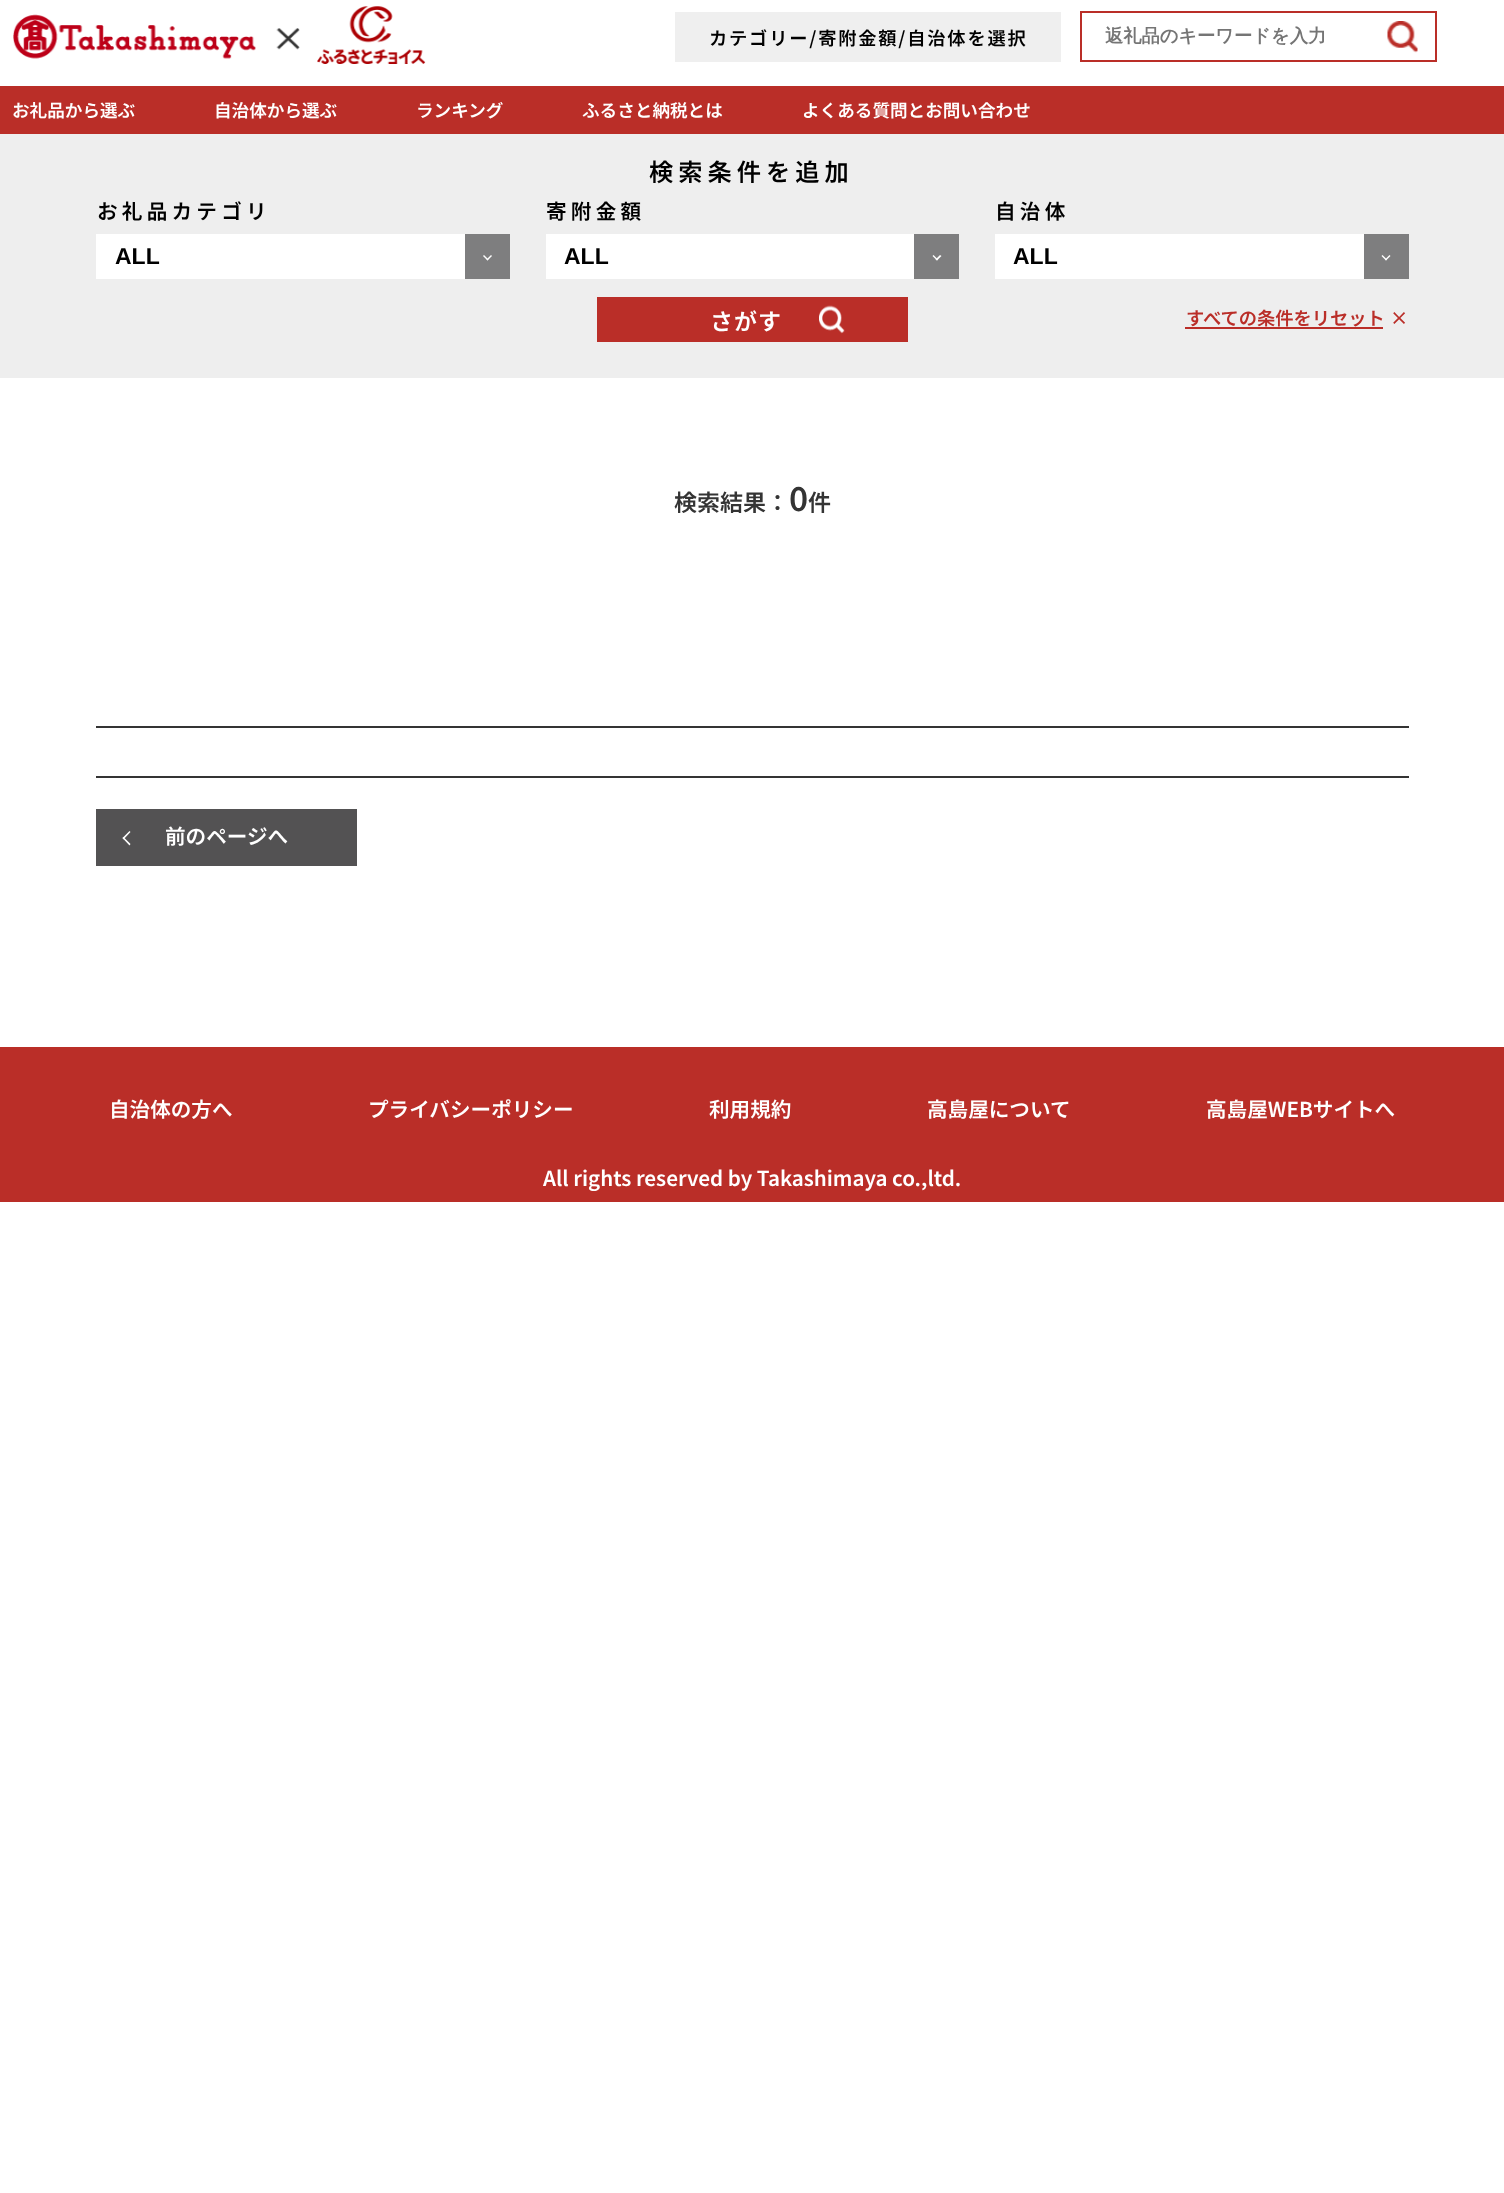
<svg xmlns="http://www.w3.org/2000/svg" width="1504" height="2193">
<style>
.a{font:600 18.25px Noto Sans JP;letter-spacing:1.8px;fill:#000}
.b{font:bold 18.25px WenQuanYi Zen Hei;fill:#757575}
.c{font:600 17.6px Noto Sans JP;fill:#fff}
.d{font:600 24.25px Noto Sans JP;letter-spacing:5px;fill:#000}
.e{font:600 20.6px Noto Sans JP;letter-spacing:4.25px;fill:#000}
.f{font:bold 23px Liberation Sans;fill:#000}
.g{font:600 23px Noto Sans JP;letter-spacing:1px;fill:#fff}
.h{font:600 18.25px Noto Sans JP;fill:#ba2e28}
.i{font:600 23px Noto Sans JP;fill:#343434}
.j{font:600 33px Noto Sans JP;fill:#343434}
.k{font:600 20.6px Noto Sans JP;fill:#fff}
</style>
<rect width="100%" height="100%" fill="#fff"/>
<image href="1.png" x="13" y="6" width="413" height="58"/>
<path fill="#efefef" d="M675 12h386v50H675z"/>
<path fill="none" stroke="#ba2e28" stroke-width="2" d="M1081 12h355v49H1081z"/>
<image href="2.png" x="1387" y="21" width="31" height="32"/>
<path fill="#ba2e28" d="M0 86h1504v48H0z"/>
<path fill="#eee" d="M0 134h1504v244H0z"/>
<path fill="#fff" d="M96 234h369v45H96z"/>
<path fill="#7e7e7f" d="M465 234h45v45H465z"/>
<path fill="#fff" d="M491 255l1 1l-4.5 4.5l-1-1z"/>
<path fill="#fff" d="M484 255l4.5 4.5l-1 1l-4.5-4.5z"/>
<path fill="#fff" d="M546 234h368v45H546z"/>
<path fill="#7e7e7f" d="M914 234h45v45H914z"/>
<path fill="#fff" d="M940 255l1.5 1l-4.5 4.5l-1.5-1z"/>
<path fill="#fff" d="M933.5 255l4.5 4.5l-1 1l-4.5-4.5z"/>
<path fill="#fff" d="M995 234h369v45H995z"/>
<path fill="#7e7e7f" d="M1364 234h45v45H1364z"/>
<path fill="#fff" d="M1389.5 255l1 1l-4.5 4.5l-1-1z"/>
<path fill="#fff" d="M1382.5 255l4.5 4.5l-1 1l-4.5-4.5z"/>
<path fill="#ba2e28" d="M597 297h311v45H597z"/>
<image href="3.png" x="819" y="305" width="26" height="29"/>
<path fill="#ba2e28" d="M1185 327h198v2H1185z"/>
<path fill="#343434" d="M96 726h1313v2H96z"/>
<path fill="#343434" d="M96 776h1313v2H96z"/>
<path fill="#535253" d="M96 809h261v57H96z"/>
<path fill="#fff" d="M123.5 837l7 7l-1 1.5l-7-7.5z"/>
<path fill="#fff" d="M129.5 831l1 1l-7 7.5l-1-1.5z"/>
<path fill="#ba2e28" d="M0 1047h1504v155H0z"/>
<text class="a" x="709" y="45">カテゴリー/寄附金額/自治体を選択</text>
<text class="b" x="1105" y="42">返礼品のキーワードを入力</text>
<text class="c" x="12" y="117">お礼品から選ぶ</text>
<text class="c" x="214" y="117">自治体から選ぶ</text>
<text class="c" x="416" y="117">ランキング</text>
<text class="c" x="582" y="117">ふるさと納税とは</text>
<text class="c" x="802" y="117">よくある質問とお問い合わせ</text>
<text class="d" x="649" y="181">検索条件を追加</text>
<text class="e" x="97" y="219">お礼品カテゴリ</text>
<text class="f" x="115" y="264">ALL</text>
<text class="e" x="546" y="219">寄附金額</text>
<text class="f" x="564" y="264">ALL</text>
<text class="e" x="995" y="219">自治体</text>
<text class="f" x="1013" y="264">ALL</text>
<text class="g" x="710" y="330">さがす</text>
<text class="h" x="1186" y="325">すべての条件をリセット</text>
<text class="h" x="1390" y="325">×</text>
<text class="i" x="674" y="511">検索結果：</text>
<text class="j" x="789" y="511">0</text>
<text class="i" x="808" y="511">件</text>
<text class="k" x="165" y="844">前のページへ</text>
<text class="k" x="109" y="1117">自治体の方へ</text>
<text class="k" x="368" y="1117">プライバシーポリシー</text>
<text class="k" x="709" y="1117">利用規約</text>
<text class="k" x="927" y="1117">高島屋について</text>
<text class="k" x="1206" y="1117">高島屋WEBサイトへ</text>
<text class="k" x="543" y="1186">All rights reserved by Takashimaya co.,ltd.</text>
</svg>
